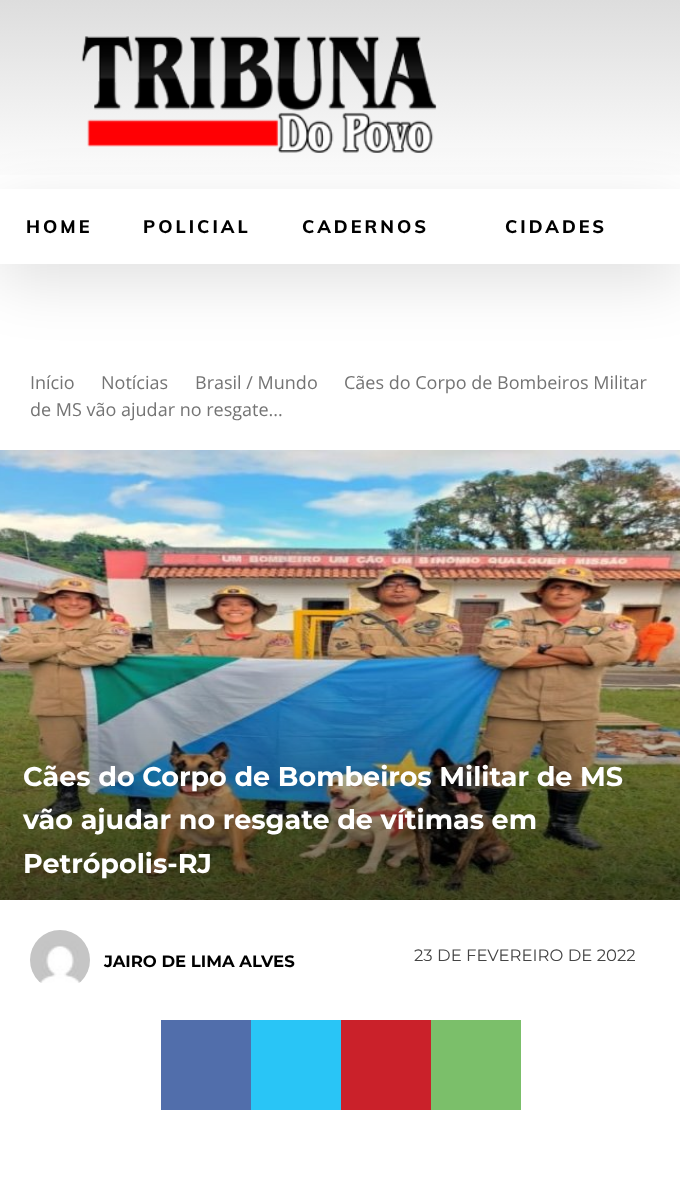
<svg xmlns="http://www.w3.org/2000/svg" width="680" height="1201">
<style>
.a{font:800 18px Muli;letter-spacing:3px;fill:#000}
.b{font:18px Open Sans;fill:#747474}
.c{font:bold 27px Montserrat;fill:#fff}
.d{font:bold 16.5px Montserrat;fill:#000}
.e{font:16.5px Montserrat;fill:#444}
</style>
<defs>
<linearGradient id="g1" gradientUnits="userSpaceOnUse" x1="341" y1="0" x2="341" y2="189"><stop offset="0" stop-color="#ddd"/><stop offset="1" stop-color="#fff"/></linearGradient>
<clipPath id="clip1"><path d="M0 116h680v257h-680zm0 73h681v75h-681z" clip-rule="evenodd"/></clipPath>
</defs>
<rect width="100%" height="100%" fill="#fff"/>
<path fill="url(#g1)" d="M0 0h680v175H0z"/>
<image href="1.png" x="81" y="36" width="356" height="117"/>
<g clip-path="url(#clip1)">
<path fill="#0000001f" filter="blur(30px)" d="M0 207h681v75H0z"/>
</g>
<image href="2.png" x="0" y="450" width="680" height="450"/>
<image href="3.png" x="30" y="930" width="60" height="53"/>
<path fill="#516eab" d="M161 1020h90v90H161z"/>
<path fill="#29c5f6" d="M251 1020h90v90H251z"/>
<path fill="#ca212a" d="M341 1020h90v90H341z"/>
<path fill="#7bbf6a" d="M431 1020h90v90H431z"/>
<text class="a" x="26" y="233">HOME</text>
<text class="a" x="143" y="233">POLICIAL</text>
<text class="a" x="302" y="233">CADERNOS</text>
<text class="a" x="505" y="233">CIDADES</text>
<text class="b" x="30" y="389">Início</text>
<text class="b" x="101" y="389">Notícias</text>
<text class="b" x="195" y="389">Brasil / Mundo</text>
<text class="b" x="344" y="389">Cães do Corpo de Bombeiros Militar</text>
<text class="b" x="30" y="416">de MS vão ajudar no resgate...</text>
<text class="c" x="23" y="786">Cães do Corpo de Bombeiros Militar de MS</text>
<text class="c" x="23" y="829">vão ajudar no resgate de vítimas em</text>
<text class="c" x="23" y="873">Petrópolis-RJ</text>
<text class="d" x="104" y="967">JAIRO DE LIMA ALVES</text>
<text class="e" x="414" y="961">23 DE FEVEREIRO DE 2022</text>
</svg>
